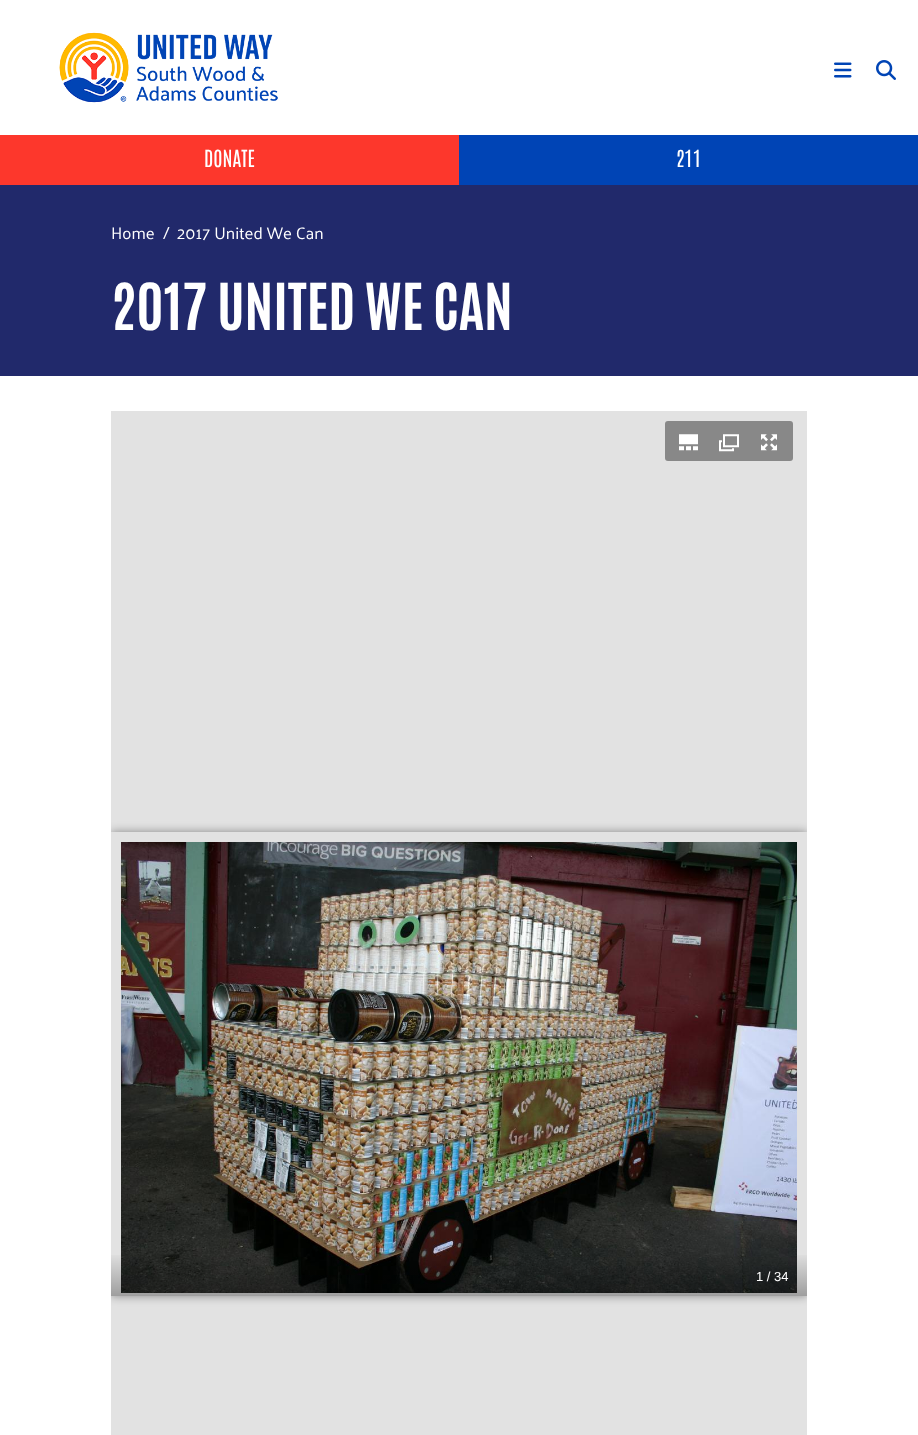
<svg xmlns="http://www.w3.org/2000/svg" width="918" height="1435">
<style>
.a{font:20px Antonio;fill:#fff}
.b{font:16.75px Palanquin;fill:#fff}
.c{font:bold 55px Antonio;fill:#fff}
.d{font:13px Liberation Sans;fill:#fff}
</style>
<defs>
<clipPath id="clip1"><path d="M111 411h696v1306H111z"/></clipPath>
<clipPath id="clip2"><path d="M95 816h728v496h-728zm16 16h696v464h-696z" clip-rule="evenodd"/></clipPath>
<linearGradient id="g1" gradientUnits="userSpaceOnUse" x1="459" y1="1252" x2="459" y2="1296"><stop offset="0" stop-color="#000" stop-opacity="0"/><stop offset="1" stop-color="#000" stop-opacity="0.3"/></linearGradient>
</defs>
<rect width="100%" height="100%" fill="#fff"/>
<image href="1.png" x="59" y="32" width="219" height="71"/>
<image href="2.png" x="834" y="62" width="18" height="16"/>
<image href="3.png" x="876" y="60" width="20" height="20"/>
<path fill="#fd372c" d="M0 135h459v50H0z"/>
<path fill="#0044b5" d="M459 135h459v50H459z"/>
<path fill="#21296b" d="M0 185h918v191H0z"/>
<path fill="#e2e2e2" d="M111 411h696v1024H111z"/>
<rect fill="#888" x="665" y="421" width="128" height="40" rx="3"/>
<image href="4.png" x="679" y="434" width="19" height="17"/>
<image href="5.png" x="719" y="434" width="20" height="18"/>
<image href="6.png" x="761" y="434" width="16" height="17"/>
<g clip-path="url(#clip1)">
<g clip-path="url(#clip2)">
<path fill="#00000066" filter="blur(5px)" d="M111 832h696v464H111z"/>
</g>
</g>
<image href="7.png" x="121" y="842" width="676" height="451"/>
<path fill="url(#g1)" d="M111 1255h696v41H111z"/>
<text class="a" x="204" y="167">DONATE</text>
<text class="a" x="676" y="167">211</text>
<text class="b" x="111" y="239">Home</text>
<text class="b" x="163" y="239">/</text>
<text class="b" x="177" y="239">2017 United We Can</text>
<text class="c" x="111" y="330">2017 UNITED WE CAN</text>
<text class="d" x="756" y="1281">1 / 34</text>
</svg>
